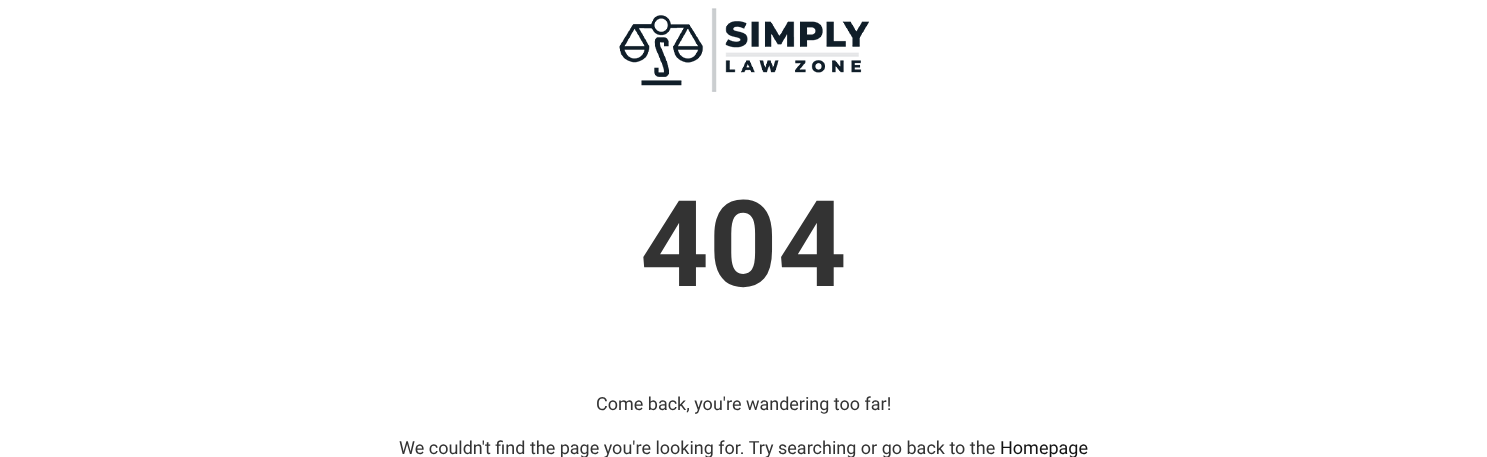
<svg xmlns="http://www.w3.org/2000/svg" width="1487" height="457">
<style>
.a{font:bold 120px Roboto;fill:#333}
.b{font:18px Roboto;fill:#333}
.c{font:18px Roboto;fill:#131313}
</style>
<rect width="100%" height="100%" fill="#fff"/>
<image href="1.png" x="619" y="8" width="250" height="84"/>
<text class="a" x="640" y="286">404</text>
<text class="b" x="596" y="410">Come back, you're wandering too far!</text>
<text class="b" x="399" y="454">We couldn't find the page you're looking for. Try searching or go back to the</text>
<text class="c" x="1000" y="454">Homepage</text>
</svg>
